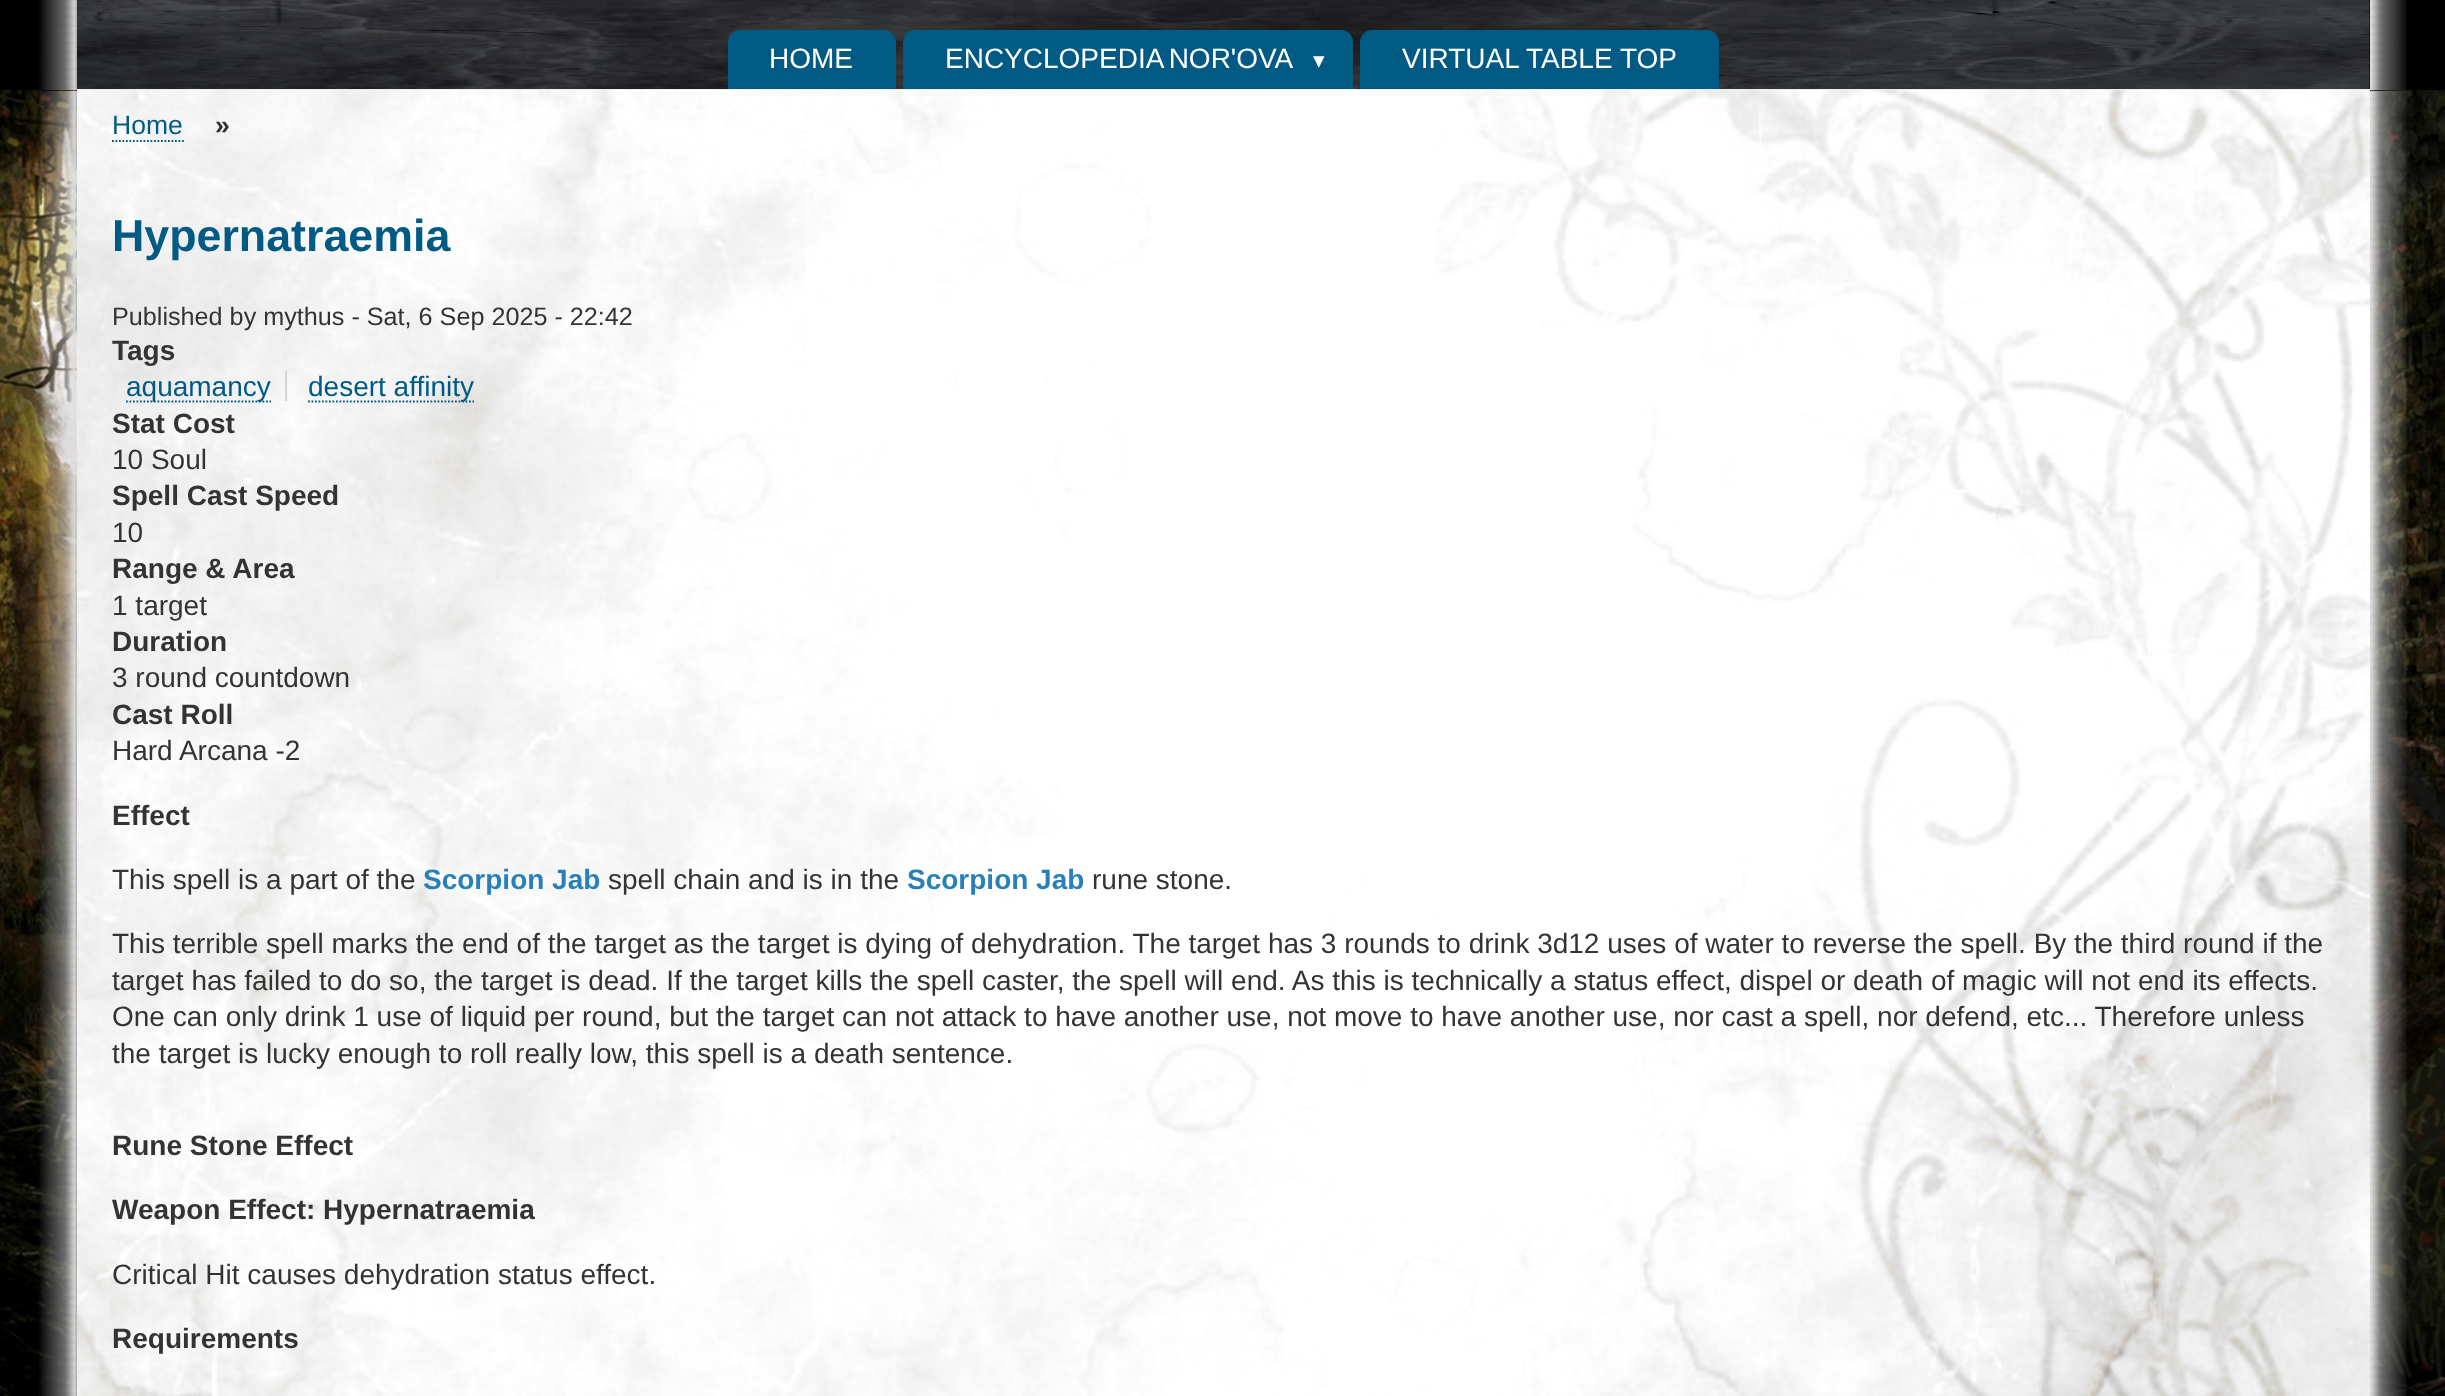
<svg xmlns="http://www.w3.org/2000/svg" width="2445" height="1396">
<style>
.a{font:28px Liberation Sans;fill:#fff}
.b{font:23px DejaVu Sans;fill:#fff}
.c{font:26.5px Liberation Sans;fill:#005a84}
.d{font:bold 26.5px Liberation Sans;fill:#333}
.e{font:bold 44.75px Liberation Sans;fill:#005a84}
.f{font:25.2px Liberation Sans;fill:#333}
.g{font:bold 28px Liberation Sans;fill:#333}
.h{font:28px Liberation Sans;fill:#005a84}
.i{font:28px Liberation Sans;fill:#333}
.j{font:bold 28px Liberation Sans;fill:#2980b9}
</style>
<rect width="100%" height="100%" fill="#000"/>
<image href="1.png" x="39" y="0" width="38" height="90"/>
<image href="2.png" x="2370" y="0" width="37" height="90"/>
<image href="3.png" x="77" y="0" width="2293" height="89"/>
<path fill="#eee" d="M77 89h2293v1H77z"/>
<path fill="#005a84" d="M740 30h144c6.5 0 12 5.5 12 12v47h-168v-47c0-6.5 5.5-12 12-12z"/>
<path fill="#005a84" d="M915 30h426c6.5 0 12 5.5 12 12v47h-450v-47c0-6.5 5.5-12 12-12z"/>
<path fill="#005a84" d="M1372 30h335c6.5 0 12 5.5 12 12v47h-359v-47c0-6.5 5.5-12 12-12z"/>
<image href="4.png" x="0" y="90" width="2445" height="1306"/>
<image href="5.png" x="39" y="90" width="38" height="1306"/>
<image href="6.png" x="2370" y="90" width="37" height="1306"/>
<image href="7.png" x="77" y="90" width="2293" height="1306"/>
<path fill="none" stroke="#005a84" stroke-width="1.8" stroke-dasharray="1.75 1.75" d="M112 141h72"/>
<path fill="#d3d3d3" d="M285 371h2v30H285z"/>
<path fill="none" stroke="#005a84" stroke-width="1.8" stroke-dasharray="1.75 1.75" d="M126 401.5h145"/>
<path fill="none" stroke="#005a84" stroke-width="1.8" stroke-dasharray="1.75 1.75" d="M308 401.5h166"/>
<text class="a" x="769" y="68">HOME</text>
<text class="a" x="945" y="68" word-spacing="-2">ENCYCLOPEDIA NOR'OVA</text>
<text class="b" x="1313" y="68">▾</text>
<text class="a" x="1402" y="68">VIRTUAL TABLE TOP</text>
<text class="c" x="112" y="134">Home</text>
<text class="d" x="215" y="134">»</text>
<text class="e" x="112" y="251">Hypernatraemia</text>
<text class="f" x="112" y="325">Published by mythus - Sat, 6 Sep 2025 - 22:42</text>
<text class="g" x="112" y="360">Tags</text>
<text class="h" x="126" y="396">aquamancy</text>
<text class="h" x="308" y="396">desert affinity</text>
<text class="g" x="112" y="433">Stat Cost</text>
<text class="i" x="112" y="469">10 Soul</text>
<text class="g" x="112" y="505">Spell Cast Speed</text>
<text class="i" x="112" y="542">10</text>
<text class="g" x="112" y="578">Range &amp; Area</text>
<text class="i" x="112" y="615">1 target</text>
<text class="g" x="112" y="651">Duration</text>
<text class="i" x="112" y="687">3 round countdown</text>
<text class="g" x="112" y="724">Cast Roll</text>
<text class="i" x="112" y="760">Hard Arcana -2</text>
<text class="g" x="112" y="825">Effect</text>
<text class="i" x="112" y="889">This spell is a part of the</text>
<text class="j" x="423" y="889">Scorpion Jab</text>
<text class="i" x="608" y="889">spell chain and is in the</text>
<text class="j" x="907" y="889">Scorpion Jab</text>
<text class="i" x="1092" y="889">rune stone.</text>
<text class="i" x="112" y="953">This terrible spell marks the end of the target as the target is dying of dehydration. The target has 3 rounds to drink 3d12 uses of water to reverse the spell. By the third round if the</text>
<text class="i" x="112" y="990">target has failed to do so, the target is dead. If the target kills the spell caster, the spell will end. As this is technically a status effect, dispel or death of magic will not end its effects.</text>
<text class="i" x="112" y="1026">One can only drink 1 use of liquid per round, but the target can not attack to have another use, not move to have another use, nor cast a spell, nor defend, etc... Therefore unless</text>
<text class="i" x="112" y="1063">the target is lucky enough to roll really low, this spell is a death sentence.</text>
<text class="g" x="112" y="1155">Rune Stone Effect</text>
<text class="g" x="112" y="1219">Weapon Effect: Hypernatraemia</text>
<text class="i" x="112" y="1284">Critical Hit causes dehydration status effect.</text>
<text class="g" x="112" y="1348">Requirements</text>
</svg>
